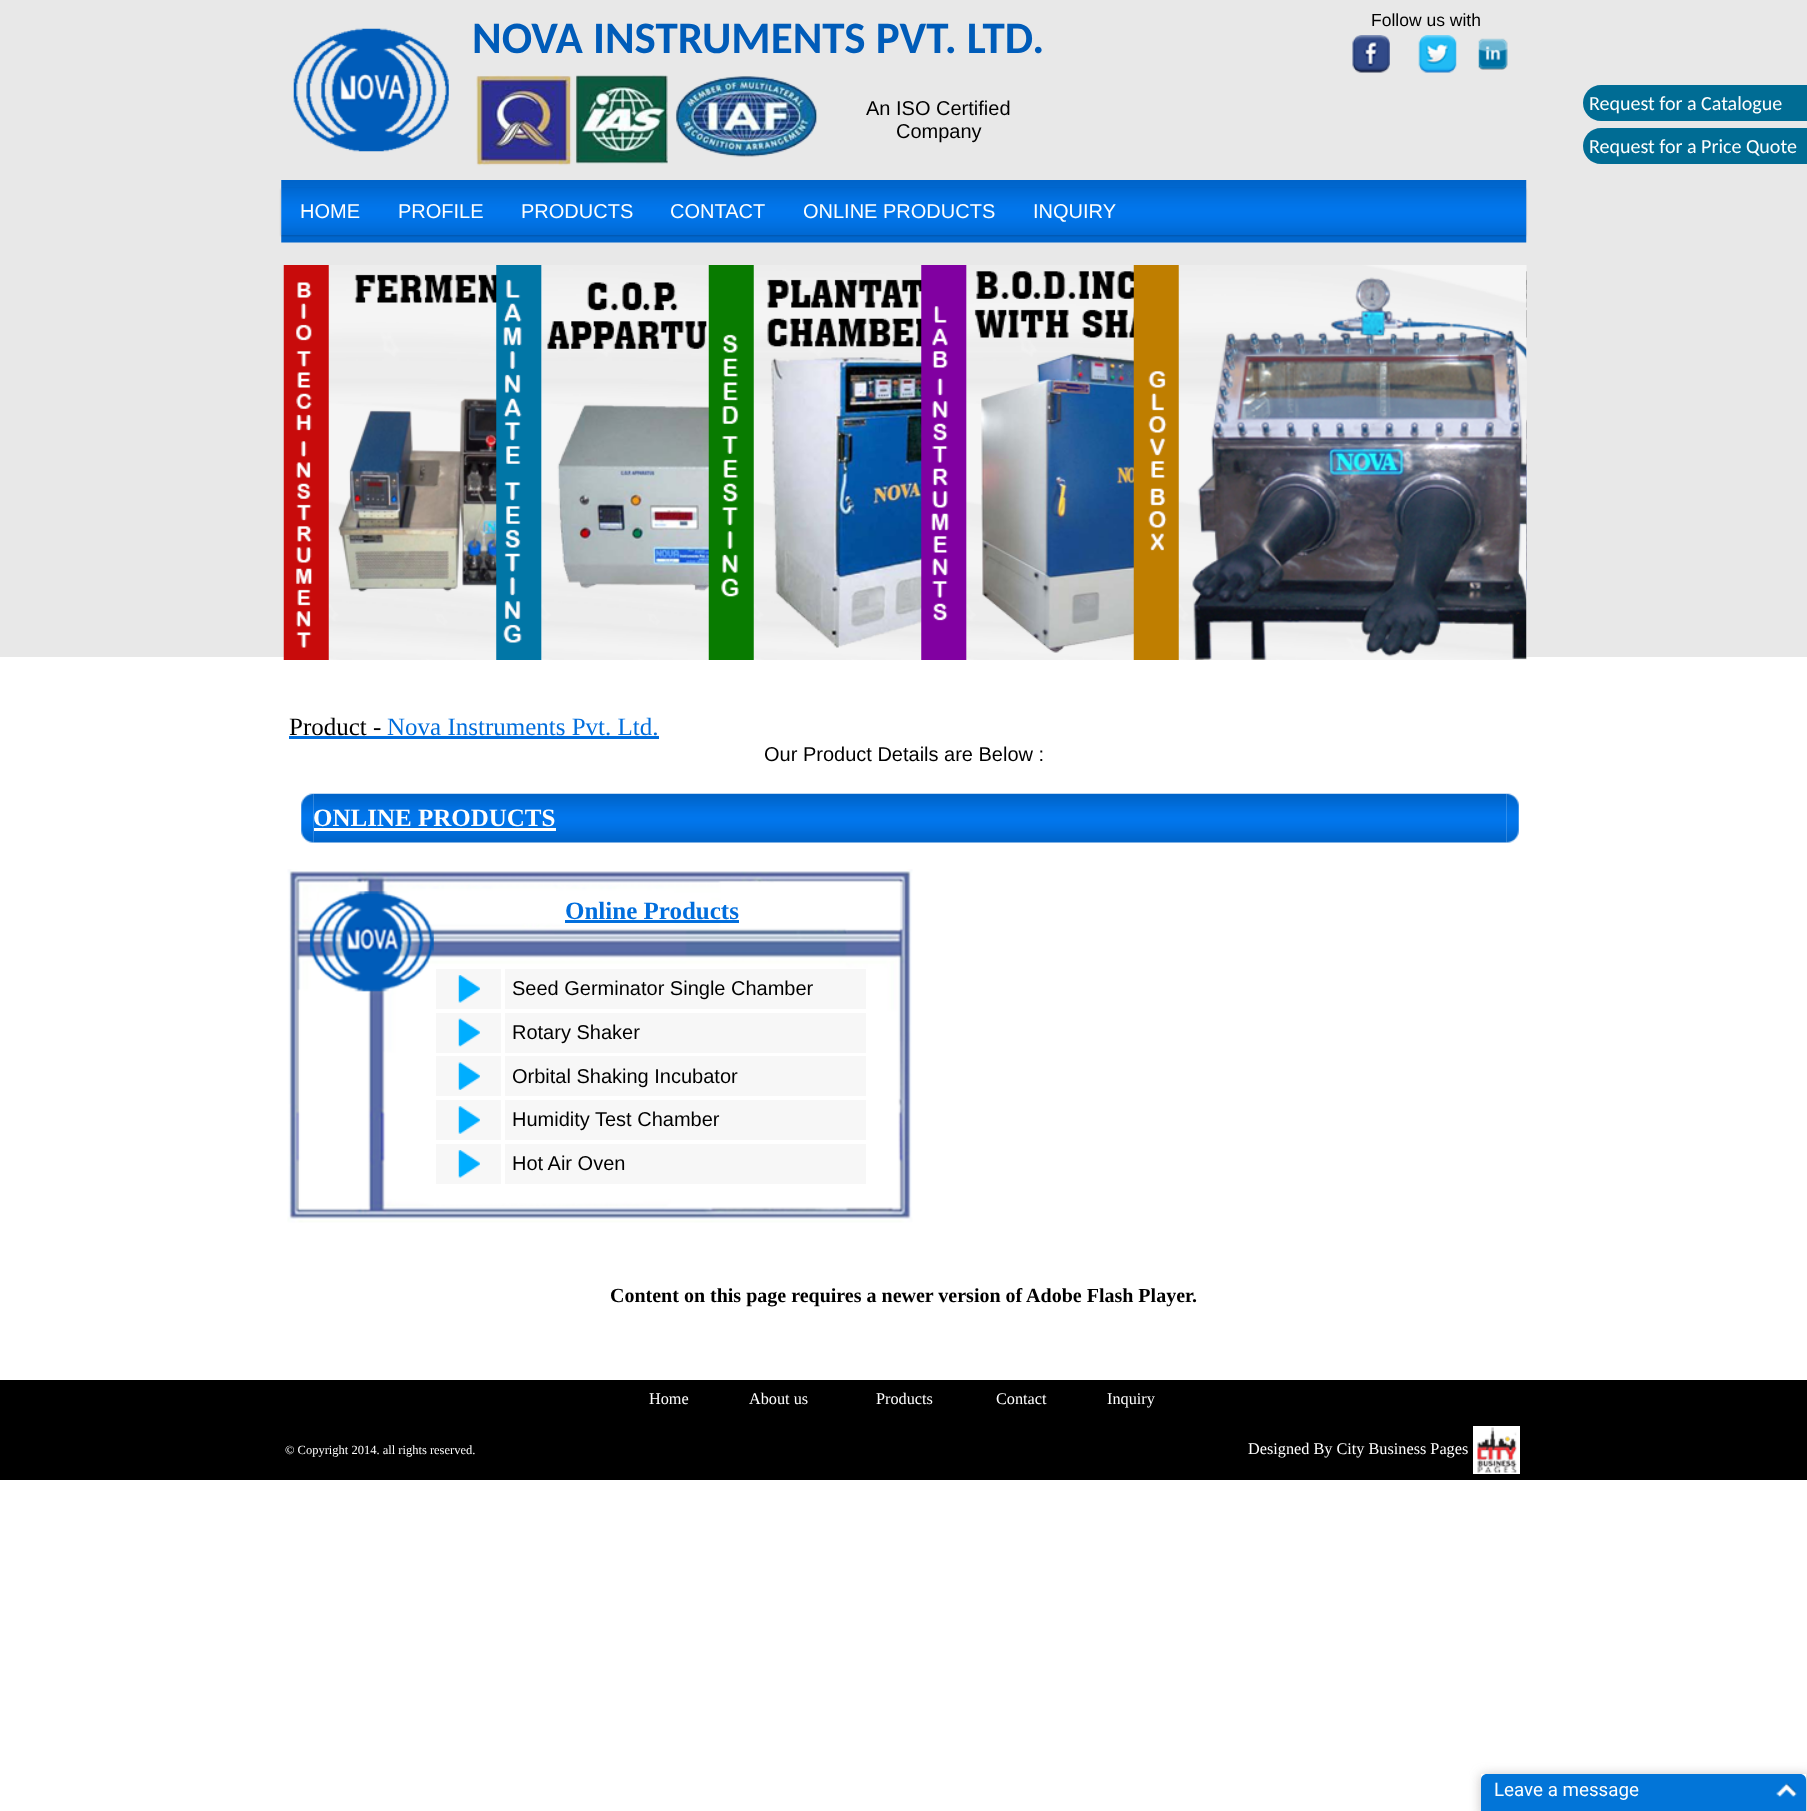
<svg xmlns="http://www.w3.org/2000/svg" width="1807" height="1811">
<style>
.a{font:17.5px Liberation Sans;fill:#000}
.b{font:bold 45px Carlito;fill:#005cb9}
.c{font:20px Liberation Sans;fill:#000}
.d{font:20px Liberation Sans;fill:#fefefe}
.e{font:25px Liberation Serif;fill:#000}
.f{font:25px Liberation Serif;fill:#016edd}
.g{font:bold 25px Liberation Serif;fill:#fefefe}
.h{font:bold 25px Liberation Serif;fill:#016edd}
.i{font:bold 20px Liberation Serif;fill:#000}
.j{font:16.25px Liberation Serif;fill:#fefefe}
.k{font:12.5px Liberation Serif;fill:#fefefe}
.l{font:20px Carlito;fill:#fefefe}
.m{font:18.75px Roboto;fill:#fefefe}
</style>
<defs>
<clipPath id="clip1"><path d="M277 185h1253v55h-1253zm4 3h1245v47h-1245z" clip-rule="evenodd"/></clipPath>
<clipPath id="clip2"><path d="M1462 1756h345v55h-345zm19 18h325v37h-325z" clip-rule="evenodd"/></clipPath>
</defs>
<rect width="100%" height="100%" fill="#fff"/>
<path fill="#e8e8e8" d="M0 0h1807v657H0z"/>
<image href="1.png" x="1352" y="35" width="38" height="38"/>
<image href="2.png" x="1418" y="35" width="39" height="38"/>
<image href="3.png" x="1478" y="38" width="30" height="32"/>
<image href="4.png" x="293" y="28" width="156" height="124"/>
<image href="5.png" x="476" y="75" width="342" height="91"/>
<image href="6.png" x="281" y="180" width="1246" height="63"/>
<g clip-path="url(#clip1)">
<path fill="#00000033" filter="blur(1px)" d="M281 189h1245v47H281z"/>
</g>
<image href="7.png" x="283" y="265" width="214" height="395"/>
<image href="8.png" x="496" y="265" width="213" height="395"/>
<image href="9.png" x="708" y="265" width="819" height="395"/>
<image href="10.png" x="921" y="265" width="606" height="395"/>
<image href="11.png" x="1133" y="265" width="394" height="395"/>
<path fill="#016edd" d="M289 736h370v3H289z"/>
<image href="13.png" x="313" y="793" width="1194" height="50"/>
<image href="12.png" x="301" y="793" width="13" height="50"/>
<path fill="#fff" d="M314 828h242v3H314z"/>
<image href="14.png" x="1506" y="793" width="13" height="50"/>
<image href="15.png" x="287" y="869" width="626" height="354"/>
<path fill="#016edd" d="M565 920h174v3H565z"/>
<path fill="#f7f7f7" d="M436 969h65v40H436z"/>
<image href="16.png" x="458" y="975" width="22" height="28"/>
<path fill="#f7f7f7" d="M505 969h361v40H505z"/>
<path fill="#f7f7f7" d="M436 1013h65v40H436z"/>
<image href="17.png" x="458" y="1018" width="22" height="29"/>
<path fill="#f7f7f7" d="M505 1013h361v40H505z"/>
<path fill="#f7f7f7" d="M436 1056h65v40H436z"/>
<image href="18.png" x="458" y="1062" width="22" height="28"/>
<path fill="#f7f7f7" d="M505 1056h361v40H505z"/>
<path fill="#f7f7f7" d="M436 1100h65v40H436z"/>
<image href="19.png" x="458" y="1106" width="22" height="28"/>
<path fill="#f7f7f7" d="M505 1100h361v40H505z"/>
<path fill="#f7f7f7" d="M436 1144h65v40H436z"/>
<image href="16.png" x="458" y="1150" width="22" height="28"/>
<path fill="#f7f7f7" d="M505 1144h361v40H505z"/>
<path fill="#000" d="M0 1380h1807v100H0z"/>
<path fill="#fff" d="M1473 1426h47v48H1473z"/>
<image href="20.png" x="1477" y="1427" width="40" height="46"/>
<path fill="#006c94" d="M1601 85h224v36h-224c-10 0-18-8-18-18c0-10 8-18 18-18z"/>
<path fill="#006c94" d="M1601 128h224v36h-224c-10 0-18-8-18-18c0-10 8-18 18-18z"/>
<g clip-path="url(#clip2)">
<path fill="#8b858580" filter="blur(6px)" d="M1481 1775h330v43H1481z"/>
</g>
<path fill="#0275d8" d="M1487 1774h313c3.5 0 6 2.5 6 6v31h-325v-31c0-3.5 2.5-6 6-6z"/>
<image href="21.png" x="1776" y="1783" width="21" height="14"/>
<text class="a" x="1371" y="26">Follow us with</text>
<text class="b" x="472" y="53">NOVA INSTRUMENTS PVT. LTD.</text>
<text class="c" x="866" y="115">An ISO Certified</text>
<text class="c" x="896" y="138">Company</text>
<text class="d" x="300" y="218">HOME</text>
<text class="d" x="398" y="218">PROFILE</text>
<text class="d" x="521" y="218">PRODUCTS</text>
<text class="d" x="670" y="218">CONTACT</text>
<text class="d" x="803" y="218">ONLINE PRODUCTS</text>
<text class="d" x="1033" y="218">INQUIRY</text>
<text class="e" x="289" y="735">Product -</text>
<text class="f" x="387" y="735">Nova Instruments Pvt. Ltd.</text>
<text class="c" x="764" y="761">Our Product Details are Below :</text>
<text class="g" x="313" y="826">ONLINE PRODUCTS</text>
<text class="h" x="565" y="919">Online Products</text>
<text class="c" x="512" y="995">Seed Germinator Single Chamber</text>
<text class="c" x="512" y="1039">Rotary Shaker</text>
<text class="c" x="512" y="1083">Orbital Shaking Incubator</text>
<text class="c" x="512" y="1126">Humidity Test Chamber</text>
<text class="c" x="512" y="1170">Hot Air Oven</text>
<text class="i" x="610" y="1302">Content on this page requires a newer version of Adobe Flash Player.</text>
<text class="j" x="649" y="1404">Home</text>
<text class="j" x="749" y="1404">About us</text>
<text class="j" x="876" y="1404">Products</text>
<text class="j" x="996" y="1404">Contact</text>
<text class="j" x="1107" y="1404">Inquiry</text>
<text class="k" x="285" y="1454">© Copyright 2014. all rights reserved.</text>
<text class="j" x="1248" y="1454">Designed By City Business Pages</text>
<text class="l" x="1589" y="110">Request for a Catalogue</text>
<text class="l" x="1589" y="153">Request for a Price Quote</text>
<text class="m" x="1494" y="1796">Leave a message</text>
</svg>
